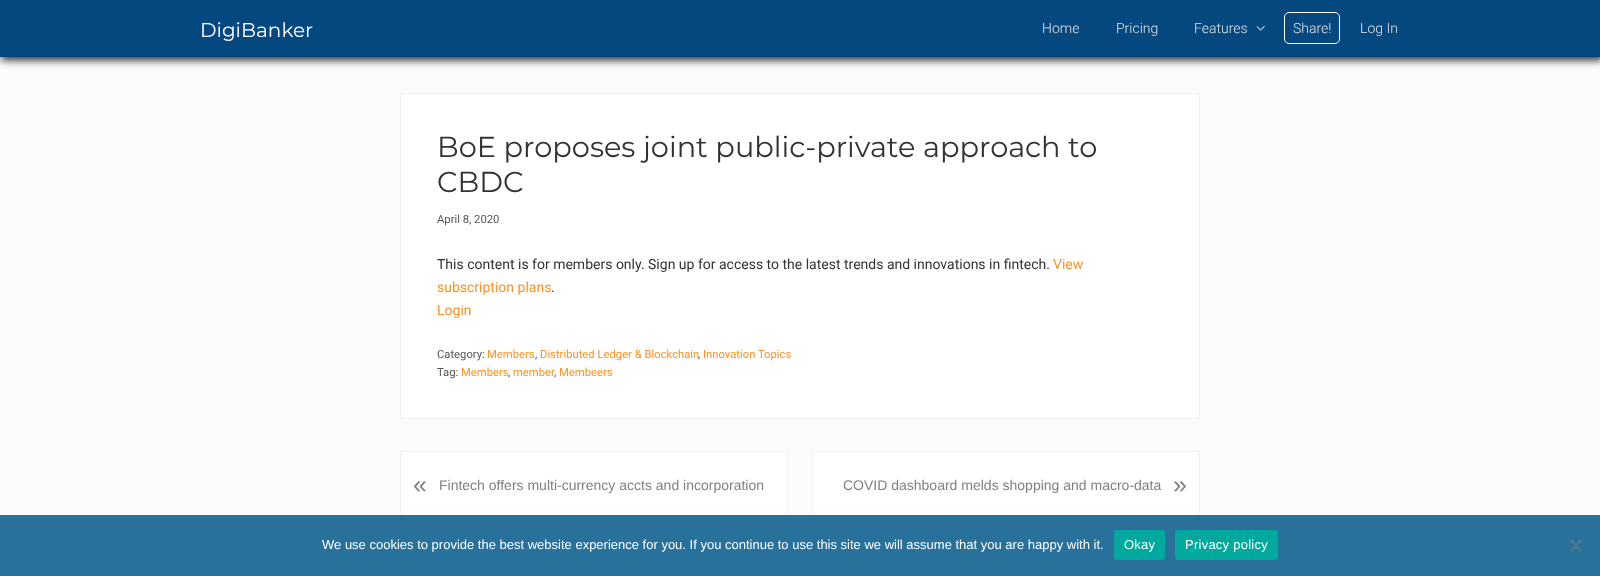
<svg xmlns="http://www.w3.org/2000/svg" width="1600" height="576">
<style>
.a{font:20px Montserrat;fill:#fff}
.b{font:300 14px Roboto;fill:#e4e4e4}
.c{font:28.8px Montserrat;fill:#323232}
.d{font:11.25px Roboto;fill:#555}
.e{font:14px Roboto;fill:#323232}
.f{font:14px Roboto;fill:#f79324}
.g{font:11.25px Roboto;fill:#f79324}
.h{font:25px Liberation Sans;fill:#808080}
.i{font:14px Liberation Sans;fill:#808080}
.j{font:13px Liberation Sans;fill:#fff}
.k{font:13px Liberation Sans;letter-spacing:0.25px;fill:#fff}
</style>
<rect width="100%" height="100%" fill="#fcfcfc"/>
<path fill="#222" filter="blur(4px)" d="M1 1h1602v59H1z"/>
<path fill="#05487f" d="M0 0h1600v56H0z"/>
<path fill="#054479" d="M0 56h1600v1H0z"/>
<path fill="#e4e4e4" d="M1264 26l1 .5l-4.5 4l-.5-.5z"/>
<path fill="#e4e4e4" d="M1257 26l4.5 4l-1 .5l-4-4z"/>
<rect fill="none" stroke="#fff" x="1284.5" y="12.5" width="55" height="31" rx="4.5"/>
<path fill="#fff" stroke="#f0f0f0" d="M400.5 93.5h799v325H400.5z"/>
<path fill="#fff" d="M401 452h386v63H401z"/>
<path fill="none" stroke="#f0f0f0" d="M400.5 451.5h387v68H400.5z"/>
<path fill="#fff" d="M813 452h386v63H813z"/>
<path fill="none" stroke="#f0f0f0" d="M812.5 451.5h387v68H812.5z"/>
<path fill="#27719a" d="M0 515h1600v61H0z"/>
<rect fill="#00a99d" x="1114" y="530" width="51" height="30" rx="3"/>
<rect fill="#00a99d" x="1175" y="530" width="103" height="30" rx="3"/>
<path fill="#54798d" d="M1580.5 539.5l1.5 1.5l-10.5 11l-1.5-1.5z"/>
<path fill="#54798d" d="M1570 541l1.5-1.5l10.5 11l-1.5 1.5z"/>
<text class="a" x="200" y="37">DigiBanker</text>
<text class="b" x="1042" y="33">Home</text>
<text class="b" x="1116" y="33">Pricing</text>
<text class="b" x="1194" y="33">Features</text>
<text class="b" x="1293" y="33">Share!</text>
<text class="b" x="1360" y="33">Log In</text>
<text class="c" x="437" y="157">BoE proposes joint public-private approach to</text>
<text class="c" x="437" y="192">CBDC</text>
<text class="d" x="437" y="223">April 8, 2020</text>
<text class="e" x="437" y="269">This content is for members only. Sign up for access to the latest trends and innovations in fintech.</text>
<text class="f" x="1053" y="269">View</text>
<text class="f" x="437" y="292">subscription plans</text>
<text class="e" x="551" y="292">.</text>
<text class="f" x="437" y="315">Login</text>
<text class="d" x="437" y="358">Category:</text>
<text class="g" x="487" y="358">Members</text>
<text class="d" x="535" y="358">,</text>
<text class="g" x="540" y="358">Distributed Ledger &amp; Blockchain</text>
<text class="d" x="698" y="358">,</text>
<text class="g" x="703" y="358">Innovation Topics</text>
<text class="d" x="437" y="376">Tag:</text>
<text class="g" x="461" y="376">Members</text>
<text class="d" x="508" y="376">,</text>
<text class="g" x="513" y="376">member</text>
<text class="g" x="559" y="376">Membeers</text>
<text class="d" x="554" y="376">,</text>
<text class="h" x="413" y="493">«</text>
<text class="i" x="439" y="490">Fintech offers multi-currency accts and incorporation</text>
<text class="i" x="843" y="490">COVID dashboard melds shopping and macro-data</text>
<text class="h" x="1173" y="493">»</text>
<text class="j" x="322" y="549">We use cookies to provide the best website experience for you. If you continue to use this site we will assume that you are happy with it.</text>
<text class="k" x="1124" y="549">Okay</text>
<text class="k" x="1185" y="549">Privacy policy</text>
</svg>
